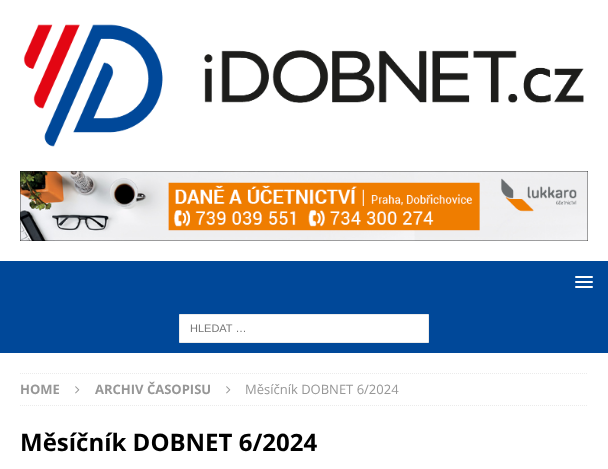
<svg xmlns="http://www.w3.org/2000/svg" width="608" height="469">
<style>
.a{font:11px Liberation Sans;fill:#757575}
.b{font:bold 13px Open Sans;fill:#979797}
.c{font:13px Open Sans;fill:#979797}
.d{font:bold 24px Open Sans;fill:#000}
</style>
<rect width="100%" height="100%" fill="#fff"/>
<image href="1.png" x="23" y="24" width="561" height="123"/>
<image href="2.png" x="20" y="171" width="568" height="70"/>
<path fill="#004899" d="M0 261h608v92H0z"/>
<rect fill="#fff" x="575" y="276" width="18" height="2" rx="1"/>
<rect fill="#fff" x="575" y="281" width="18" height="2" rx="1"/>
<rect fill="#fff" x="575" y="286" width="18" height="2" rx="1"/>
<path fill="#fff" stroke="#ebebeb" d="M179.5 314.5h249v28H179.5z"/>
<path fill="none" stroke="#ebebeb" stroke-dasharray="1 1" d="M20 373.5h568"/>
<path fill="none" stroke="#ebebeb" stroke-dasharray="1 1" d="M20 405.5h568"/>
<image href="3.png" x="75" y="386" width="5" height="8"/>
<image href="3.png" x="226" y="386" width="5" height="8"/>
<text class="a" x="190" y="332">HLEDAT …</text>
<text class="b" x="20" y="394">HOME</text>
<text class="b" x="95" y="394">ARCHIV ČASOPISU</text>
<text class="c" x="245" y="394">Měsíčník DOBNET 6/2024</text>
<text class="d" x="20" y="451">Měsíčník DOBNET 6/2024</text>
</svg>
